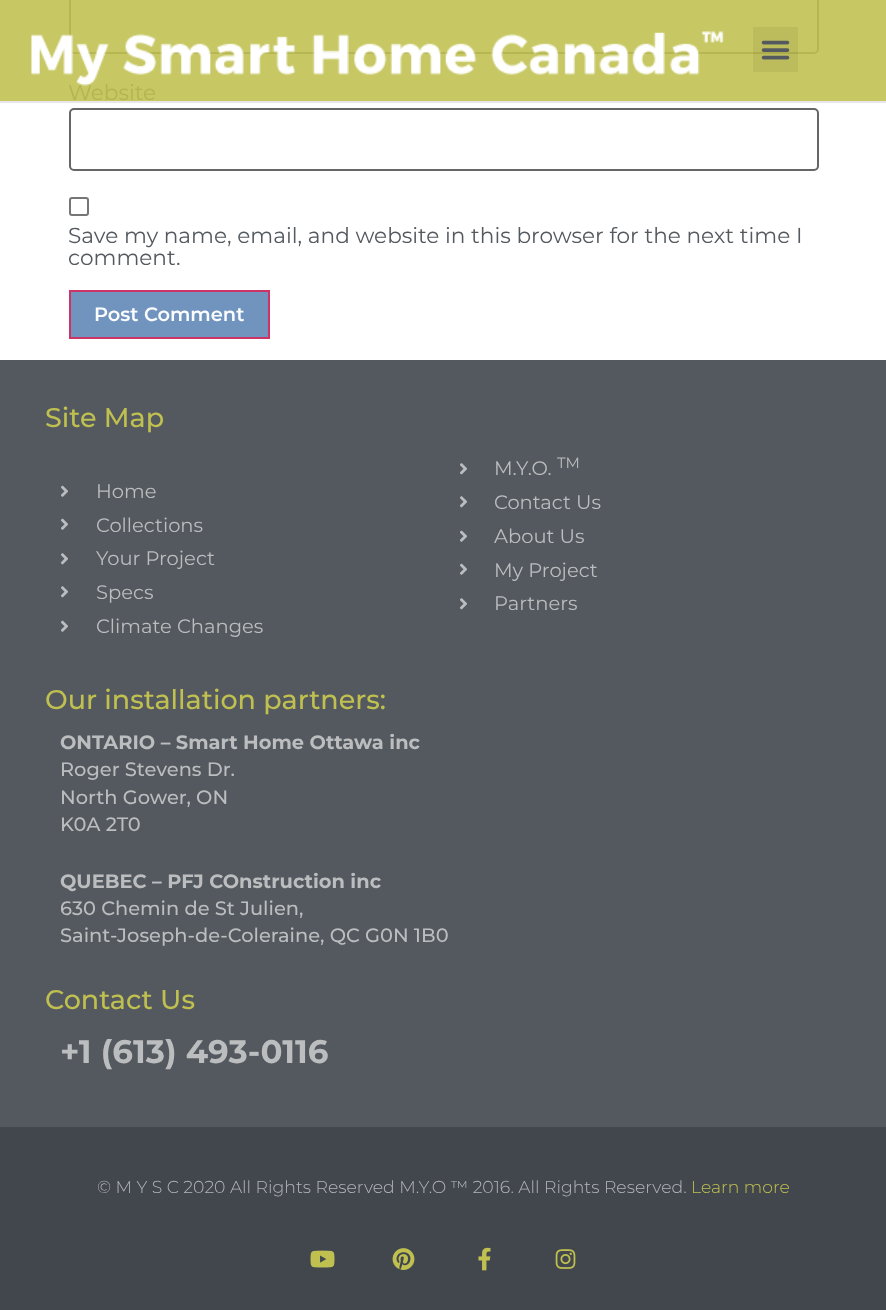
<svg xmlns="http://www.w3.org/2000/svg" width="886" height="1310">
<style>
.a{font:21.6px Montserrat;fill:#b4b552}
.b{font:21.6px Montserrat;fill:#54595f}
.c{font:600 19.4px Montserrat;fill:#fbfcfd}
.d{font:500 27px Montserrat;fill:#c0c050}
.e{font:19.5px Montserrat;fill:#bbbdbf}
.f{font:15px Montserrat;fill:#bbbdbf}
.g{font:bold 19.4px Montserrat;fill:#bbbdbf}
.h{font:500 19.4px Montserrat;fill:#bbbdbf}
.i{font:bold 32.5px Montserrat;fill:#bbbdbf}
.j{font:300 17.3px Montserrat;fill:#b3b5b8}
.k{font:300 17.3px Montserrat;fill:#c0c050}
</style>
<rect width="100%" height="100%" fill="#fff"/>
<path fill="#c7c763" d="M0 0h886v101H0z"/>
<path fill="#e7e7e7" d="M0 101h886v2H0z"/>
<rect fill="none" stroke="#b6b652" stroke-width="2" x="70" y="-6" width="748" height="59" rx="4"/>
<path fill="#0000000d" d="M753 27h45v45H753z"/>
<image href="2.png" x="761" y="40" width="29" height="20"/>
<rect fill="none" stroke="#666" stroke-width="2" x="70" y="109" width="748" height="61" rx="4"/>
<rect fill="none" stroke="#767676" stroke-width="2" x="70" y="198" width="18" height="17" rx="2"/>
<path fill="#7194bf" stroke="#c36" stroke-width="2" d="M70 291h199v47H70z"/>
<path fill="#54595f" d="M0 360h886v767H0z"/>
<image href="3.png" x="61" y="485" width="7" height="12"/>
<image href="3.png" x="61" y="518" width="7" height="12"/>
<image href="4.png" x="61" y="553" width="7" height="12"/>
<image href="4.png" x="61" y="586" width="7" height="12"/>
<image href="3.png" x="61" y="620" width="7" height="12"/>
<image href="4.png" x="460" y="463" width="7" height="12"/>
<image href="4.png" x="460" y="496" width="7" height="12"/>
<image href="3.png" x="460" y="530" width="7" height="12"/>
<image href="3.png" x="460" y="563" width="7" height="12"/>
<image href="4.png" x="460" y="598" width="7" height="12"/>
<path fill="#42474d" d="M0 1129h886v181H0z"/>
<path fill="#44474b" d="M0 1127h886v2H0z"/>
<image href="5.png" x="310" y="1250" width="25" height="18"/>
<image href="6.png" x="392" y="1248" width="23" height="22"/>
<image href="7.png" x="478" y="1247" width="13" height="24"/>
<image href="8.png" x="555" y="1249" width="21" height="20"/>
<text class="a" x="68" y="100">Website</text>
<image href="1.png" x="31" y="31" width="693" height="55"/>
<text class="b" x="68" y="243">Save my name, email, and website in this browser for the next time I</text>
<text class="b" x="68" y="265">comment.</text>
<text class="c" x="94" y="321">Post Comment</text>
<text class="d" x="45" y="427">Site Map</text>
<text class="e" x="96" y="498">Home</text>
<text class="e" x="96" y="532">Collections</text>
<text class="e" x="96" y="565">Your Project</text>
<text class="e" x="96" y="599">Specs</text>
<text class="e" x="96" y="633">Climate Changes</text>
<text class="e" x="494" y="475">M.Y.O.</text>
<text class="f" x="557" y="468">TM</text>
<text class="e" x="494" y="509">Contact Us</text>
<text class="e" x="494" y="543">About Us</text>
<text class="e" x="494" y="577">My Project</text>
<text class="e" x="494" y="610">Partners</text>
<text class="d" x="45" y="709">Our installation partners:</text>
<text class="g" x="60" y="749">ONTARIO – Smart Home Ottawa inc</text>
<text class="h" x="60" y="776">Roger Stevens Dr.</text>
<text class="h" x="60" y="804">North Gower, ON</text>
<text class="h" x="60" y="831">K0A 2T0</text>
<text class="g" x="60" y="888">QUEBEC – PFJ COnstruction inc</text>
<text class="h" x="60" y="915">630 Chemin de St Julien,</text>
<text class="h" x="60" y="942">Saint-Joseph-de-Coleraine, QC G0N 1B0</text>
<text class="d" x="45" y="1009">Contact Us</text>
<text class="i" x="60" y="1063">+1 (613) 493-0116</text>
<text class="j" x="97" y="1193">© M Y S C 2020 All Rights Reserved M.Y.O ™ 2016. All Rights Reserved.</text>
<text class="k" x="691" y="1193">Learn more</text>
</svg>
